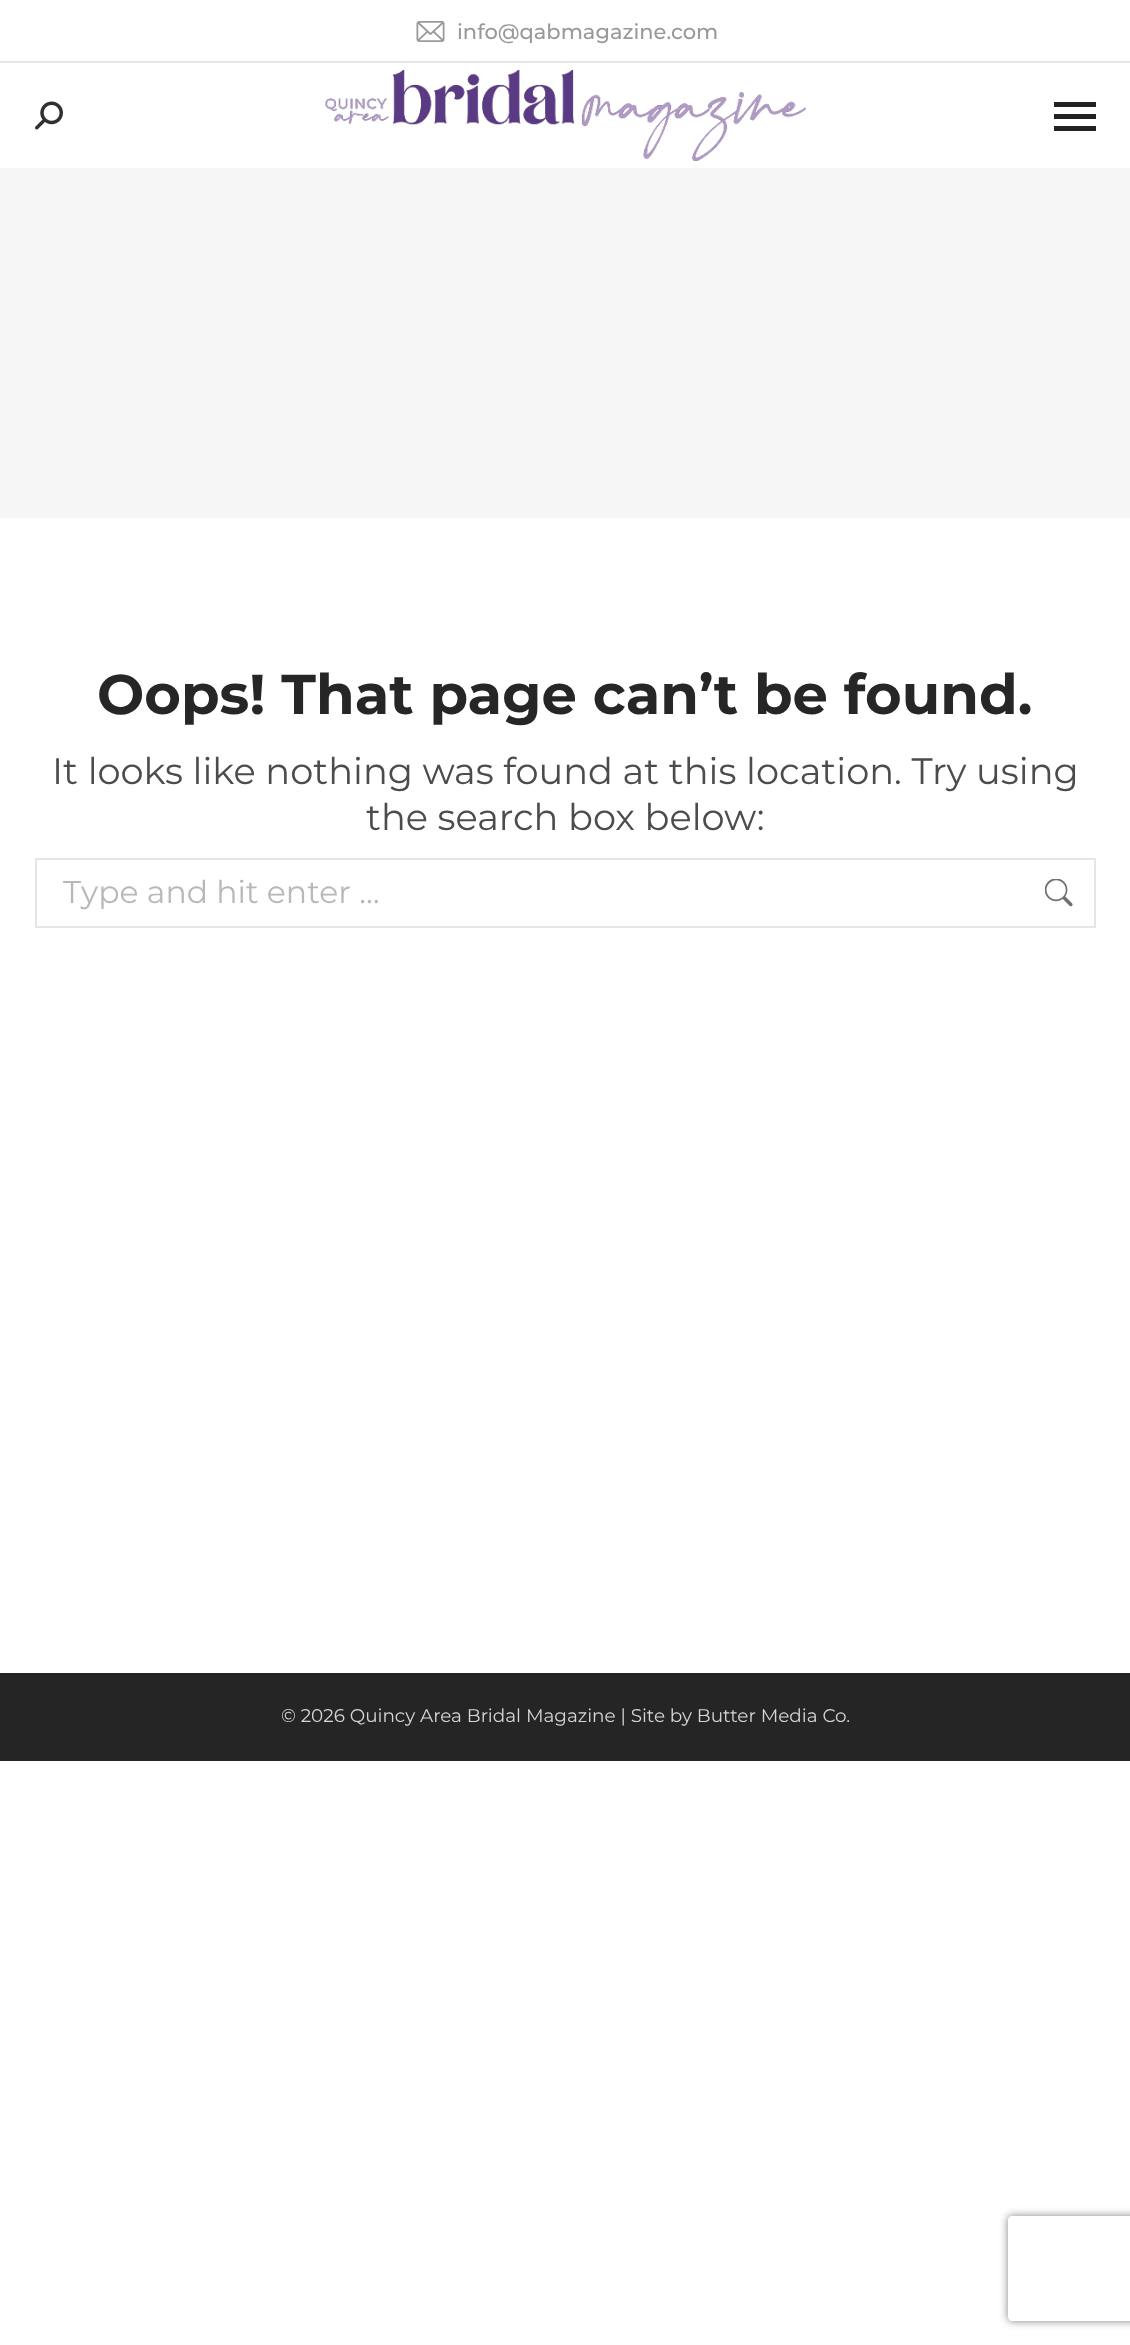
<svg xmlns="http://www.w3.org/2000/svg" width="1130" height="2345">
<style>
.a{font:500 21px Montserrat;fill:#999}
.b{font:bold 56px Montserrat;fill:#262626}
.c{font:36.75px Montserrat;fill:#4c4c4c}
.d{font:31.5px Montserrat;fill:#b8b8b8}
.e{font:18.4px Montserrat;fill:#d6d6d6}
</style>
<defs>
<clipPath id="clip1"><path d="M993 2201h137v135h-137zm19 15h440c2 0 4 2 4 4v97c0 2-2 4-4 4h-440c-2 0-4-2-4-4v-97c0-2 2-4 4-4z" clip-rule="evenodd"/></clipPath>
</defs>
<rect width="100%" height="100%" fill="#fff"/>
<image href="1.png" x="416" y="21" width="29" height="21"/>
<path fill="#e6e6e6" d="M0 61h1130v2H0z"/>
<image href="2.png" x="35" y="101" width="28" height="29"/>
<image href="3.png" x="325" y="70" width="481" height="91"/>
<path fill="#222" d="M1054 102h42v5H1054z"/>
<path fill="#222" d="M1054 114h42v5H1054z"/>
<path fill="#222" d="M1054 126h42v5H1054z"/>
<path fill="#f6f6f6" d="M0 168h1130v350H0z"/>
<path fill="none" stroke="#e6e6e6" stroke-width="2" d="M36 859h1059v68H36z"/>
<image href="4.png" x="1045" y="879" width="28" height="28"/>
<path fill="#252525" d="M0 1673h1130v88H0z"/>
<g clip-path="url(#clip1)">
<rect fill="#808080" filter="blur(4.5px)" x="1008" y="2216" width="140" height="105" rx="4"/>
</g>
<text class="a" x="457" y="39">info@qabmagazine.com</text>
<text class="b" x="97" y="714">Oops! That page can’t be found.</text>
<text class="c" x="52" y="784">It looks like nothing was found at this location. Try using</text>
<text class="c" x="366" y="830">the search box below:</text>
<text class="d" x="63" y="903">Type and hit enter …</text>
<text class="e" x="281" y="1722">© 2026 Quincy Area Bridal Magazine | Site by Butter Media Co.</text>
</svg>
